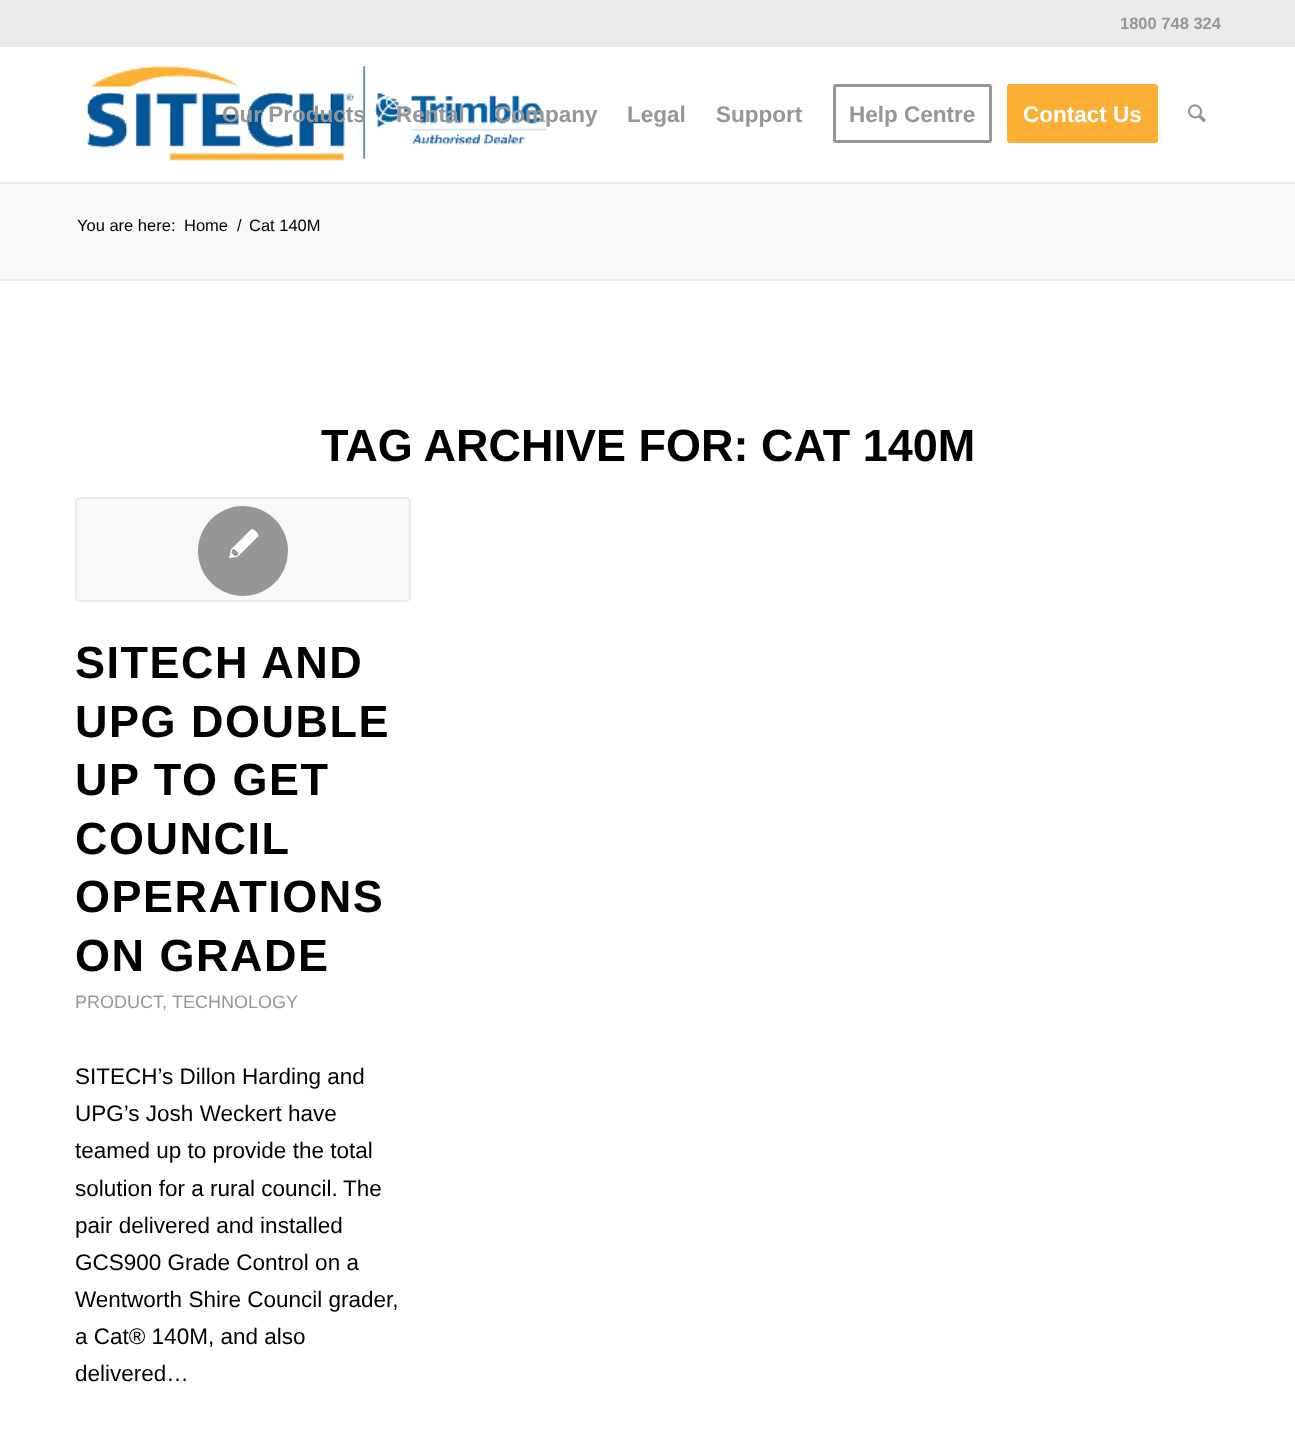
<svg xmlns="http://www.w3.org/2000/svg" width="1295" height="1448">
<style>
.a{font:bold 16.5px Liberation Sans;fill:#969696}
.b{font:bold 22.5px Liberation Sans;fill:#969696}
.c{font:bold 22.5px Liberation Sans;fill:#fff}
.d{font:16.5px Liberation Sans;fill:#000}
.e{font:bold 45px Liberation Sans;fill:#000}
.f{font:bold 45px Liberation Sans;letter-spacing:1.5px;fill:#000}
.g{font:18px Liberation Sans;fill:#969696}
.h{font:22.5px Liberation Sans;fill:#000}
</style>
<rect width="100%" height="100%" fill="#fff"/>
<path fill="#ebebeb" d="M0 0h1295v47H0z"/>
<path fill="#ebebeb" d="M0 182h1295v2H0z"/>
<image href="1.png" x="87" y="66" width="462" height="95"/>
<rect fill="none" stroke="#969696" stroke-width="3" x="834.5" y="85.5" width="156" height="56" rx="1.5"/>
<rect fill="#fbaf34" stroke="#fbaf34" stroke-width="3" x="1008.5" y="85.5" width="148" height="56" rx="1.5"/>
<image href="2.png" x="1188" y="104" width="18" height="19"/>
<path fill="#f8f8f8" d="M0 184h1295v95H0z"/>
<path fill="#ebebeb" d="M0 279h1295v2H0z"/>
<rect fill="#f8f8f8" stroke="#ebebeb" stroke-width="2" x="76" y="498" width="334" height="103" rx="4"/>
<circle fill="#969696" cx="243" cy="551" r="45"/>
<image href="3.png" x="229" y="529" width="30" height="30"/>
<text class="a" x="1120" y="29">1800 748 324</text>
<text class="b" x="222" y="122">Our Products</text>
<text class="b" x="396" y="122">Rental</text>
<text class="b" x="495" y="122">Company</text>
<text class="b" x="627" y="122">Legal</text>
<text class="b" x="716" y="122">Support</text>
<text class="b" x="849" y="122">Help Centre</text>
<text class="c" x="1023" y="122">Contact Us</text>
<text class="d" x="77" y="231">You are here:</text>
<text class="d" x="184" y="231">Home</text>
<text class="d" x="237" y="231">/</text>
<text class="d" x="249" y="231">Cat 140M</text>
<text class="e" x="321" y="461">TAG ARCHIVE FOR: CAT 140M</text>
<text class="f" x="75" y="678">SITECH AND</text>
<text class="f" x="75" y="737">UPG DOUBLE</text>
<text class="f" x="75" y="795">UP TO GET</text>
<text class="f" x="75" y="854">COUNCIL</text>
<text class="f" x="75" y="912">OPERATIONS</text>
<text class="f" x="75" y="971">ON GRADE</text>
<text class="g" x="75" y="1008">PRODUCT</text>
<text class="g" x="162" y="1008">,</text>
<text class="g" x="172" y="1008">TECHNOLOGY</text>
<text class="h" x="75" y="1084">SITECH’s Dillon Harding and</text>
<text class="h" x="75" y="1121">UPG’s Josh Weckert have</text>
<text class="h" x="75" y="1158">teamed up to provide the total</text>
<text class="h" x="75" y="1196">solution for a rural council.</text>
<text class="h" x="343" y="1196">The</text>
<text class="h" x="75" y="1233">pair delivered and installed</text>
<text class="h" x="75" y="1270">GCS900 Grade Control on a</text>
<text class="h" x="75" y="1307">Wentworth Shire Council grader,</text>
<text class="h" x="75" y="1344">a Cat® 140M, and also</text>
<text class="h" x="75" y="1381">delivered…</text>
</svg>
